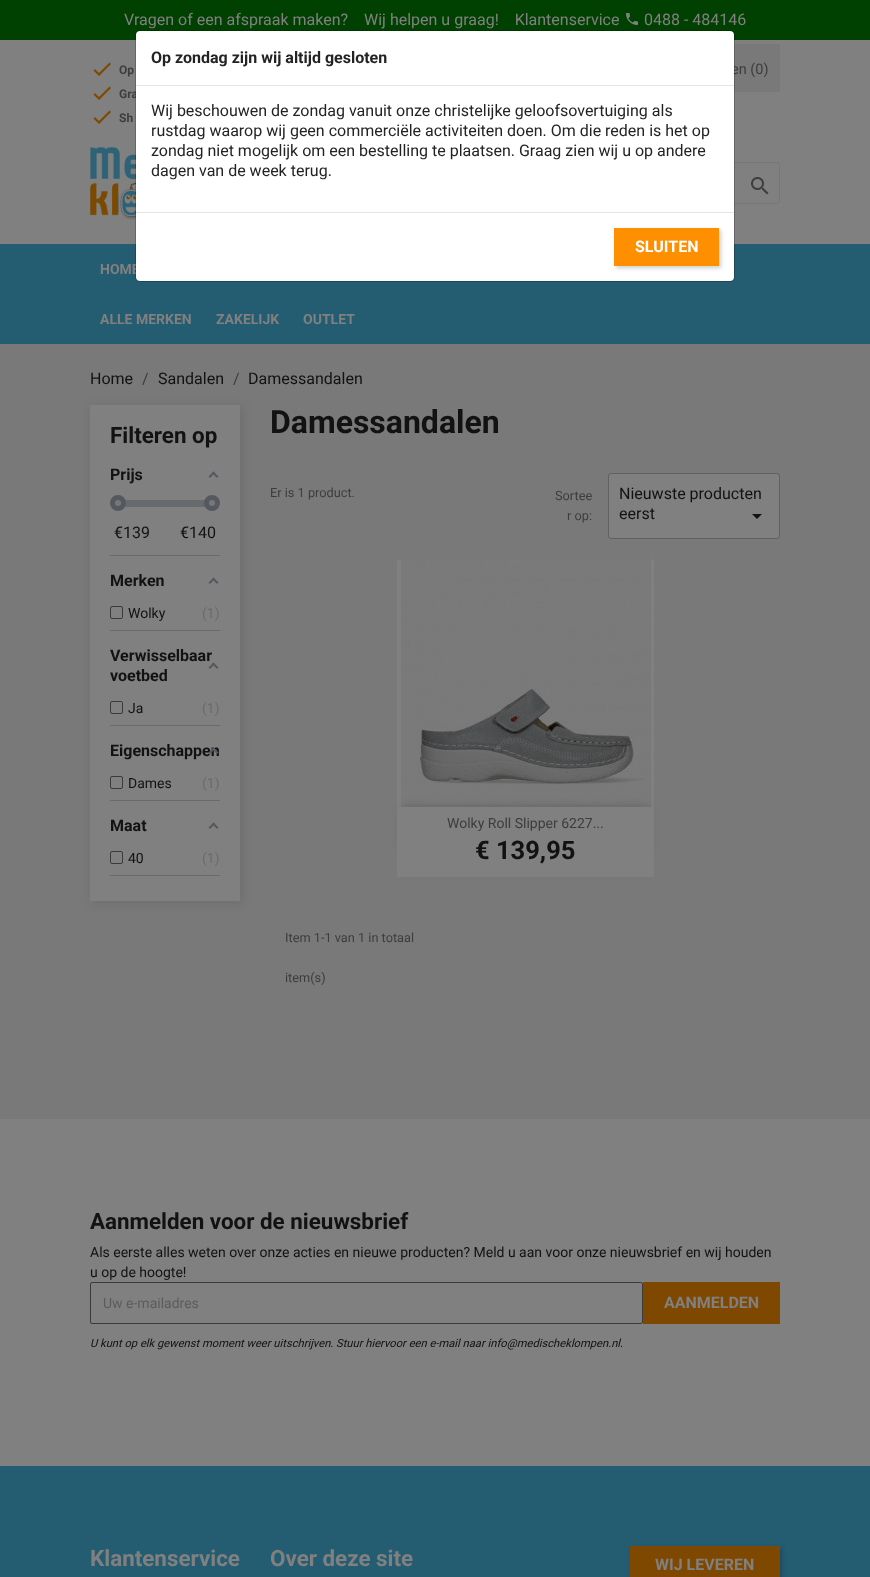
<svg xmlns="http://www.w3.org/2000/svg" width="870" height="1577">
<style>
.a{font:16px Roboto;fill:#808080}
.b{font:bold 12px Roboto;fill:#3d3d3d}
.c{font:14.5px Roboto;fill:#3d3d3d}
.d{font:bold 14px Roboto;fill:#808080}
.e{font:16px Roboto;fill:#121212}
.f{font:16px Roboto;fill:#3d3d3d}
.g{font:bold 22.4px Roboto;fill:#121212}
.h{font:bold 16px Roboto;fill:#121212}
.i{font:14px Roboto;fill:#121212}
.j{font:14px Roboto;fill:#686b6e}
.k{font:bold 32px Roboto;fill:#121212}
.l{font:12.75px Roboto;fill:#3d3d3d}
.m{font:14px Roboto;fill:#3d3d3d}
.n{font:bold 25.5px Roboto;fill:#121212}
.o{font:14px Roboto;fill:#5c5c5c}
.p{font:bold 16px Roboto;fill:#808080}
.q{font:italic 11.2px Roboto;fill:#121212}
.r{font:bold 22.4px Roboto;fill:#808080}
.s{font:bold 16px Roboto;fill:#232323}
.t{font:16px Roboto;fill:#232323}
.u{font:bold 16px Roboto;fill:#fff}
</style>
<rect width="100%" height="100%" fill="#808080"/>
<path fill="#004000" d="M0 0h870v40H0z"/>
<image href="1.png" x="626" y="13" width="12" height="12"/>
<path fill="#7f4800" d="M99 73l10.5-10.5l1.5 1.5l-12 12l-5.5-5.5l1.5-1.5z"/>
<path fill="#7f4800" d="M99 97l10.5-10.5l1.5 1.5l-12 12l-5.5-5.5l1.5-1.5z"/>
<path fill="#7f4800" d="M99 121l10.5-10.5l1.5 1.5l-12 12l-5.5-5.5l1.5-1.5z"/>
<path fill="#797979" d="M734 44h46v48H734z"/>
<image href="2.png" x="90" y="146" width="46" height="74"/>
<rect fill="none" stroke="#00000012" x="575.5" y="162.5" width="204" height="41" rx="2.5"/>
<image href="3.png" x="751" y="177" width="18" height="18"/>
<path fill="#245c71" d="M0 244h870v100H0z"/>
<path fill="#797979" d="M0 344h870v775H0z"/>
<path fill="#0000001a" filter="blur(5.5px)" d="M92 407h150v496H92z"/>
<path fill="#808080" d="M90 405h150v496H90z"/>
<path fill="#686b6e" d="M110 555h110v1H110z"/>
<path fill="#55595f" d="M213.5 471.5l5 5l-1.5 1.5l-5-5z"/>
<path fill="#55595f" d="M213.5 471.5l1.5 1.5l-5 5l-1.5-1.5z"/>
<path fill="#686b6e" d="M118 500h94v7H118z"/>
<circle fill="#767878" stroke="#55595f" stroke-width="5" cx="118" cy="503" r="5.5"/>
<circle fill="#767878" stroke="#55595f" stroke-width="5" cx="212" cy="503" r="5.5"/>
<path fill="#686b6e" d="M110 630h110v1H110z"/>
<path fill="#55595f" d="M213.5 577.5l5 5l-1.5 1.5l-5-5z"/>
<path fill="#55595f" d="M213.5 577.5l1.5 1.5l-5 5l-1.5-1.5z"/>
<rect fill="none" stroke="#3b3b3b" x="110.5" y="606.5" width="12" height="12" rx="1.5"/>
<path fill="#686b6e" d="M110 725h110v1H110z"/>
<path fill="#55595f" d="M213.5 662.5l5 5l-1.5 1.5l-5-5z"/>
<path fill="#55595f" d="M213.5 662.5l1.5 1.5l-5 5l-1.5-1.5z"/>
<rect fill="none" stroke="#3b3b3b" x="110.5" y="701.5" width="12" height="12" rx="1.5"/>
<path fill="#686b6e" d="M110 800h110v1H110z"/>
<rect fill="none" stroke="#3b3b3b" x="110.5" y="776.5" width="12" height="12" rx="1.5"/>
<path fill="#686b6e" d="M110 875h110v1H110z"/>
<path fill="#55595f" d="M213.5 822.5l5 5l-1.5 1.5l-5-5z"/>
<path fill="#55595f" d="M213.5 822.5l1.5 1.5l-5 5l-1.5-1.5z"/>
<rect fill="none" stroke="#3b3b3b" x="110.5" y="851.5" width="12" height="12" rx="1.5"/>
<rect fill="#808080" x="608" y="473" width="172" height="66" rx="3"/>
<rect fill="none" stroke="#00000040" x="608.5" y="473.5" width="171" height="65" rx="2.5"/>
<path fill="#121212" d="M752 514h10l-5 5z"/>
<rect fill="#808080" x="397" y="559" width="257" height="318" rx="3"/>
<image href="4.png" x="401" y="559" width="250" height="248"/>
<path fill="#00000033" filter="blur(5px)" d="M402 807h247v40H402z"/>
<path fill="#808080" d="M397 875h257v2H397z"/>
<path fill="#808080" d="M397 807h257v67c0 1.5-1.5 3-3 3h-251c-1.5 0-3-1.5-3-3z"/>
<rect fill="none" stroke="#3b3b3b" x="90.5" y="1282.5" width="552" height="41" rx="1.5"/>
<path fill="#7f4800" d="M643 1282h137v42H643z"/>
<path fill="#245c71" d="M0 1466h870v111H0z"/>
<path fill="#00000033" filter="blur(2px)" d="M632 1548h150v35H632z"/>
<path fill="#7f4800" d="M630 1546h150v31H630z"/>
<text class="a" xml:space="preserve" x="124" y="25">Vragen of een afspraak maken?    Wij helpen u graag!    Klantenservice</text>
<text class="a" x="644" y="25">0488 - 484146</text>
<text class="b" x="119" y="74">Op</text>
<text class="b" x="119" y="98">Gra</text>
<text class="b" x="119" y="122">Sh</text>
<text class="c" x="731" y="74">en (0)</text>
<text class="d" x="100" y="274">HOME</text>
<text class="d" x="100" y="324">ALLE MERKEN</text>
<text class="d" x="216" y="324">ZAKELIJK</text>
<text class="d" x="303" y="324">OUTLET</text>
<text class="e" x="90" y="384">Home</text>
<text class="f" x="142" y="384">/</text>
<text class="e" x="158" y="384">Sandalen</text>
<text class="f" x="233" y="384">/</text>
<text class="e" x="248" y="384">Damessandalen</text>
<text class="g" x="110" y="443">Filteren op</text>
<text class="h" x="110" y="480">Prijs</text>
<text class="e" x="114" y="538">€139</text>
<text class="e" x="180" y="538">€140</text>
<text class="h" x="110" y="586">Merken</text>
<text class="i" x="128" y="618">Wolky</text>
<text class="j" x="202" y="618">(1)</text>
<text class="h" x="110" y="661">Verwisselbaar</text>
<text class="h" x="110" y="681">voetbed</text>
<text class="i" x="128" y="713">Ja</text>
<text class="j" x="202" y="713">(1)</text>
<text class="h" x="110" y="756">Eigenschappen</text>
<path fill="#55595f" d="M213.5 747.5l5 5l-1.5 1.5l-5-5z"/>
<path fill="#55595f" d="M213.5 747.5l1.5 1.5l-5 5l-1.5-1.5z"/>
<text class="i" x="128" y="788">Dames</text>
<text class="j" x="202" y="788">(1)</text>
<text class="h" x="110" y="831">Maat</text>
<text class="i" x="128" y="863">40</text>
<text class="j" x="202" y="863">(1)</text>
<text class="k" x="270" y="433">Damessandalen</text>
<text class="l" x="270" y="497">Er is 1 product.</text>
<text class="l" x="555" y="500">Sortee</text>
<text class="l" x="567" y="520">r op:</text>
<text class="e" x="619" y="499">Nieuwste producten</text>
<text class="e" x="619" y="519">eerst</text>
<text class="m" x="447" y="828">Wolky Roll Slipper 6227...</text>
<text class="n" x="475" y="859">€ 139,95</text>
<text class="l" x="285" y="942">Item 1-1 van 1 in totaal</text>
<text class="l" x="285" y="982">item(s)</text>
<text class="g" x="90" y="1229">Aanmelden voor de nieuwsbrief</text>
<text class="i" x="90" y="1257">Als eerste alles weten over onze acties en nieuwe producten? Meld u aan voor onze nieuwsbrief en wij houden</text>
<text class="i" x="90" y="1277">u op de hoogte!</text>
<text class="o" x="103" y="1308">Uw e-mailadres</text>
<text class="p" x="664" y="1308">AANMELDEN</text>
<text class="q" x="90" y="1347">U kunt op elk gewenst moment weer uitschrijven. Stuur hiervoor een e-mail naar info@medischeklompen.nl.</text>
<text class="r" x="90" y="1566">Klantenservice</text>
<text class="r" x="270" y="1566">Over deze site</text>
<text class="p" x="655" y="1570">WIJ LEVEREN</text>
<rect fill="#fff" x="136" y="31" width="598" height="250" rx="4"/>
<rect fill="none" stroke="#00000033" x="135.5" y="30.5" width="599" height="251" rx="4.5"/>
<path fill="#e5e5e5" d="M136 85h598v1H136z"/>
<text class="s" x="151" y="63">Op zondag zijn wij altijd gesloten</text>
<text class="t" x="151" y="116">Wij beschouwen de zondag vanuit onze christelijke geloofsovertuiging als</text>
<text class="t" x="151" y="136">rustdag waarop wij geen commerciële activiteiten doen. Om die reden is het op</text>
<text class="t" x="151" y="156">zondag niet mogelijk om een bestelling te plaatsen. Graag zien wij u op andere</text>
<text class="t" x="151" y="176">dagen van de week terug.</text>
<path fill="#e5e5e5" d="M136 212h598v1H136z"/>
<path fill="#00000033" filter="blur(2px)" d="M616 230h105v38H616z"/>
<path fill="#fe8f00" d="M614 228h105v38H614z"/>
<text class="u" x="635" y="252">SLUITEN</text>
</svg>
